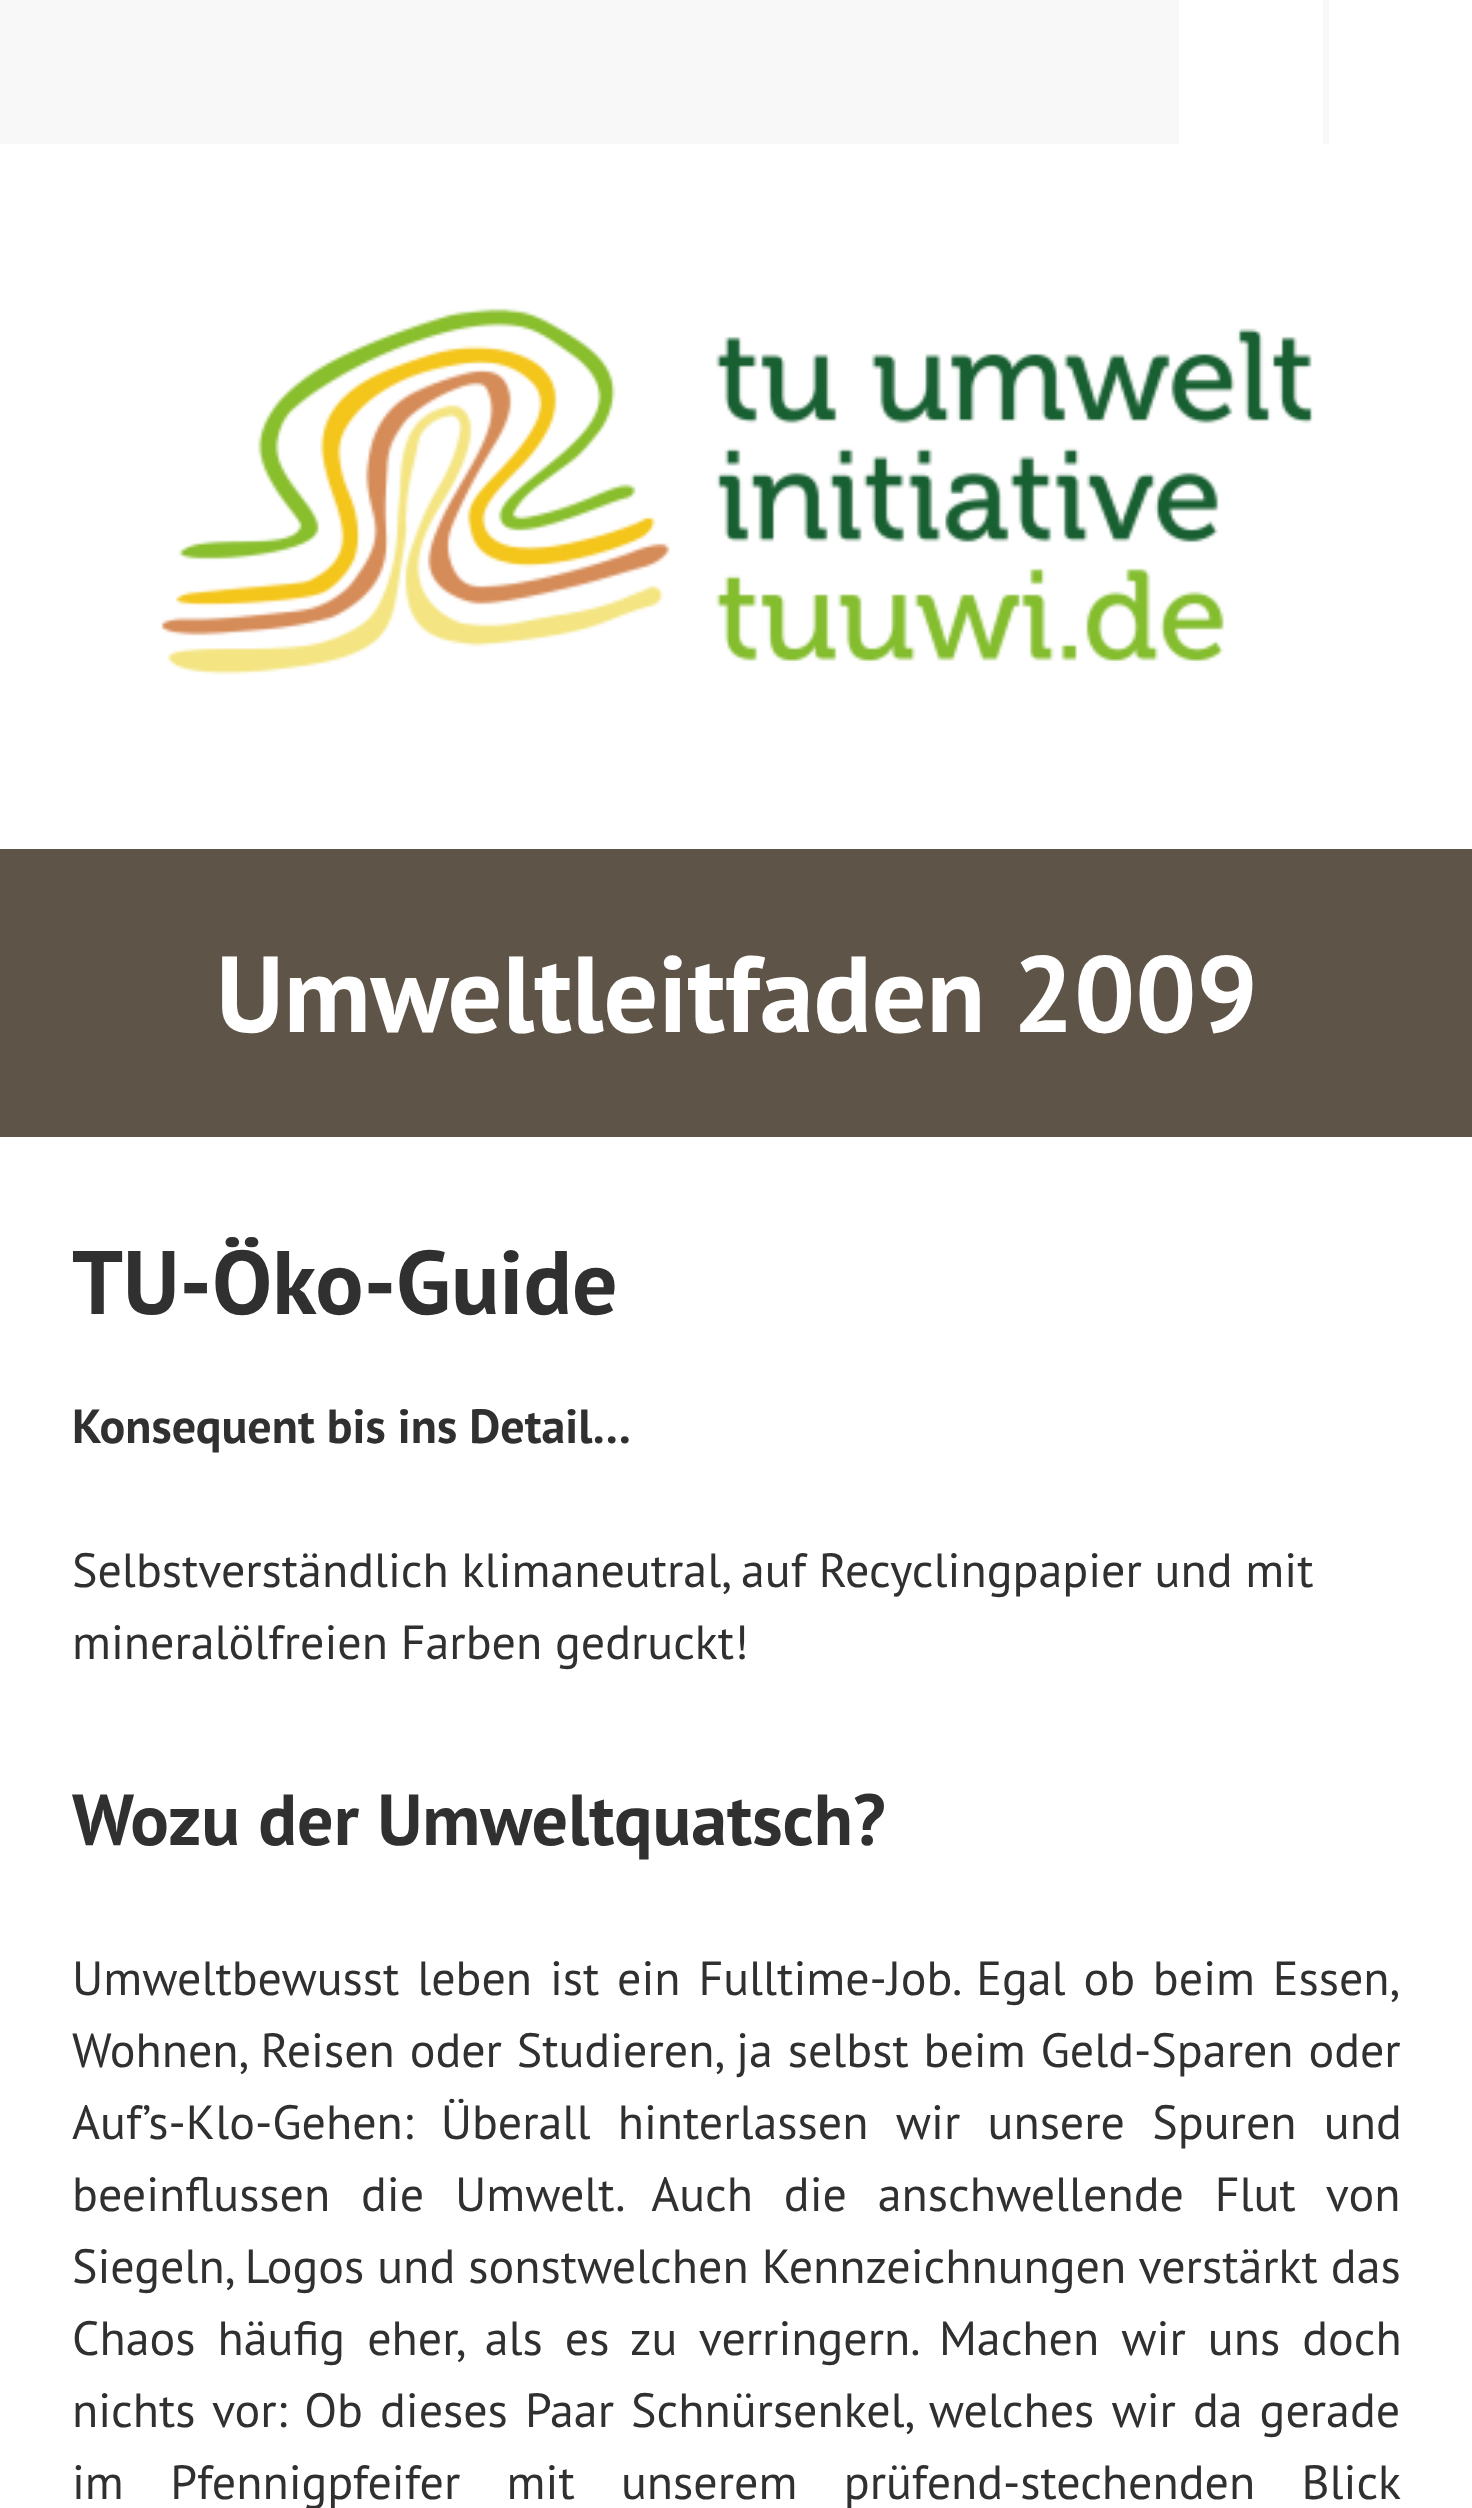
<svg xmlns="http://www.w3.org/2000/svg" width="1472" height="2508">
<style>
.a{font:bold 108px PT Sans;fill:#fff}
.b{font:bold 90px PT Sans;fill:#303030}
.c{font:bold 48px PT Sans;fill:#303030}
.d{font:48px PT Sans;fill:#303030}
.e{font:bold 72px PT Sans;fill:#303030}
</style>
<rect width="100%" height="100%" fill="#fff"/>
<path fill="#f8f8f8" d="M0 0h1329v144H0z"/>
<path fill="#fff" d="M1179 0h144v144H1179z"/>
<image href="1.png" x="160" y="308" width="1154" height="367"/>
<path fill="#5f5448" d="M0 849h1472v288H0z"/>
<text class="a" x="216" y="1032">Umweltleitfaden 2009</text>
<text class="b" x="72" y="1314">TU-Öko-Guide</text>
<text class="c" x="72" y="1443">Konsequent bis ins Detail…</text>
<text class="d" x="72" y="1587">Selbstverständlich klimaneutral, auf Recyclingpapier und mit</text>
<text class="d" x="72" y="1659">mineralölfreien Farben gedruckt!</text>
<text class="e" x="72" y="1845">Wozu der Umweltquatsch?</text>
<text class="d" x="72" y="1995" word-spacing="5">Umweltbewusst leben ist ein Fulltime-Job. Egal ob beim Essen,</text>
<text class="d" x="72" y="2067" word-spacing="2">Wohnen, Reisen oder Studieren, ja selbst beim Geld-Sparen oder</text>
<text class="d" x="72" y="2139" word-spacing="14.5">Auf’s-Klo-Gehen: Überall hinterlassen wir unsere Spuren und</text>
<text class="d" x="72" y="2211" word-spacing="18">beeinflussen die Umwelt. Auch die anschwellende Flut von</text>
<text class="d" x="72" y="2283" word-spacing="0.25">Siegeln, Logos und sonstwelchen Kennzeichnungen verstärkt das</text>
<text class="d" x="72" y="2355" word-spacing="9.25">Chaos häufig eher, als es zu verringern. Machen wir uns doch</text>
<text class="d" x="72" y="2427" word-spacing="4.25">nichts vor: Ob dieses Paar Schnürsenkel, welches wir da gerade</text>
<text class="d" x="72" y="2499" word-spacing="33.5">im Pfennigpfeifer mit unserem prüfend-stechenden Blick</text>
</svg>
